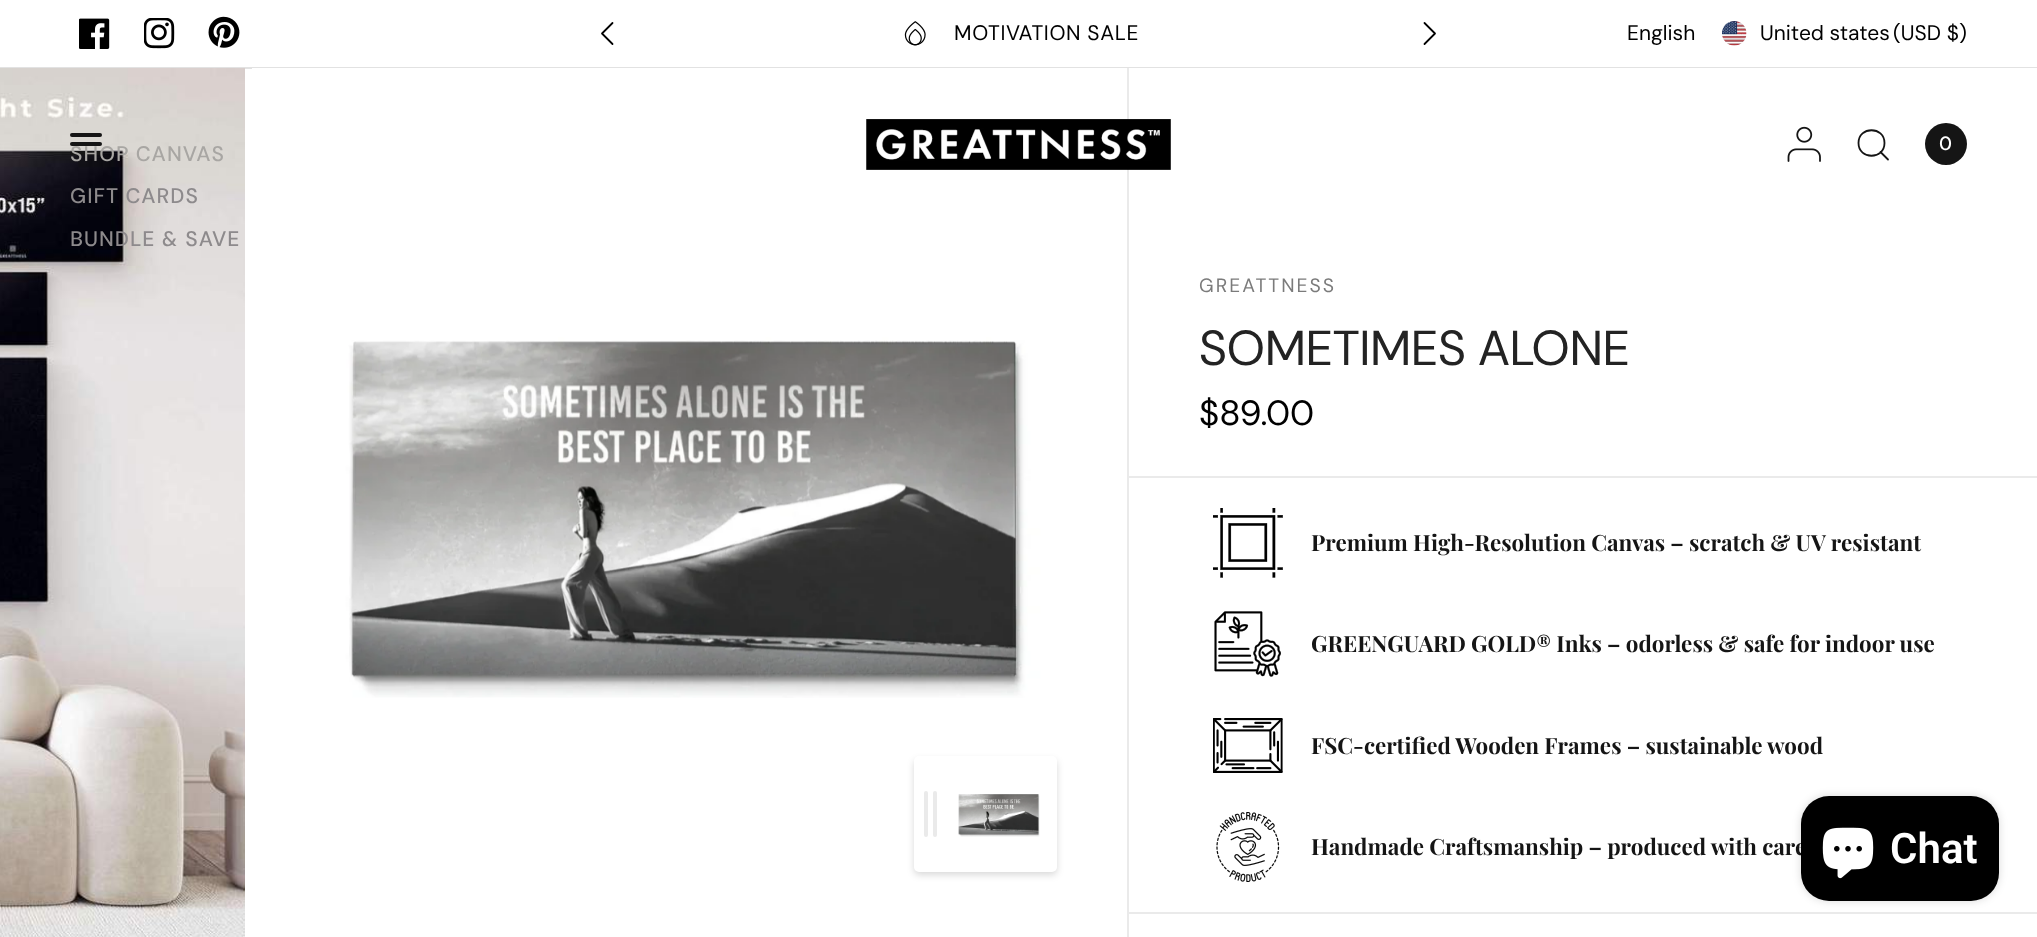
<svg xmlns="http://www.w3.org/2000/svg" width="2037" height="937">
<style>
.a{font:21px DM Sans;letter-spacing:0.6px;fill:#000}
.b{font:21px DM Sans;fill:#000}
.c{font:500 19.25px DM Sans;fill:#fff}
.d{font:500 21px 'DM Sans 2';letter-spacing:1px;fill:#a8a6a3}
.e{font:500 21px 'DM Sans 2';letter-spacing:1px;fill:#8d8a8c}
.f{font:19.25px 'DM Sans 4';letter-spacing:2px;fill:#7b7b7b}
.g{font:49px 'DM Sans 2';fill:#232323}
.h{font:35px 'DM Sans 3';fill:#000}
.i{font:bold 22.4px Playfair Display;fill:#151515}
.j{font:600 42px Roboto;fill:#fff}
</style>
<rect width="100%" height="100%" fill="#fff"/>
<path fill="#e2e2e2" d="M0 67h2037v2H0z"/>
<image href="1.png" x="79" y="18" width="31" height="31"/>
<image href="2.png" x="144" y="18" width="31" height="31"/>
<image href="3.png" x="208" y="16" width="32" height="32"/>
<path fill="none" stroke="#000" stroke-width="1.8" stroke-linecap="round" stroke-linejoin="round" d="M612.5 23l-10.5 10.5l10.5 10.5"/>
<image href="4.png" x="904" y="21" width="22" height="25"/>
<path fill="none" stroke="#000" stroke-width="1.8" stroke-linecap="round" stroke-linejoin="round" d="M1424.5 23l10.5 10.5l-10.5 10.5"/>
<image href="5.png" x="1722" y="21" width="25" height="25"/>
<image href="9.png" x="252" y="68" width="875" height="630"/>
<path fill="#eaeaea" d="M1127 68h2v869H1127z"/>
<image href="6.png" x="866" y="119" width="305" height="51"/>
<image href="7.png" x="1787" y="126" width="34" height="36"/>
<path fill="none" stroke="#151515" stroke-width="1.8" stroke-linecap="round" stroke-linejoin="round" d="M1880.5 152l7.5 7.5m-3.5-16.5c0 17-26 17-26 0c0-17 26-17 26 0z"/>
<circle fill="#151515" cx="1946" cy="144" r="21"/>
<image href="8.png" x="0" y="68" width="245" height="869"/>
<rect fill="#151515" x="70" y="133" width="32" height="4" rx="2"/>
<rect fill="#151515" x="70" y="142" width="32" height="4" rx="2"/>
<rect fill="#151515" x="70" y="151" width="32" height="4" rx="2"/>
<rect fill="#00000026" filter="blur(3.5px)" x="914" y="760" width="143" height="115" rx="5"/>
<rect fill="#fff" x="914" y="756" width="143" height="116" rx="5"/>
<rect fill="#eaeaea" x="924" y="791" width="4" height="46" rx="2"/>
<rect fill="#eaeaea" x="933" y="791" width="4" height="46" rx="2"/>
<image href="10.png" x="958" y="794" width="82" height="43"/>
<path fill="#fff" d="M1129 68h908v1H1129z"/>
<path fill="#eaeaea" d="M1129 476h908v2H1129z"/>
<image href="11.png" x="1213" y="508" width="70" height="70"/>
<image href="12.png" x="1214" y="611" width="67" height="66"/>
<image href="13.png" x="1213" y="718" width="70" height="55"/>
<image href="14.png" x="1216" y="812" width="64" height="70"/>
<path fill="#eaeaea" d="M1129 912h908v2H1129z"/>
<rect fill="#00000026" filter="blur(4.5px)" x="1801" y="796" width="198" height="105" rx="28"/>
<text class="a" x="954" y="40">MOTIVATION SALE</text>
<text class="b" x="1627" y="40">English</text>
<text class="b" x="1760" y="40">United states</text>
<text class="b" x="1893" y="40">(USD $)</text>
<text class="c" x="1939" y="150">0</text>
<text class="d" x="70" y="161">SHOP CANVAS</text>
<text class="e" x="70" y="203">GIFT CARDS</text>
<text class="e" x="70" y="246">BUNDLE &amp; SAVE</text>
<text class="f" x="1199" y="292">GREATTNESS</text>
<text class="g" x="1199" y="365">SOMETIMES ALONE</text>
<text class="h" x="1199" y="425">$89.00</text>
<text class="i" x="1311" y="551">Premium High-Resolution Canvas – scratch &amp; UV resistant</text>
<text class="i" x="1311" y="652">GREENGUARD GOLD® Inks – odorless &amp; safe for indoor use</text>
<text class="i" x="1311" y="754">FSC-certified Wooden Frames – sustainable wood</text>
<text class="i" x="1311" y="855">Handmade Craftsmanship – produced with care</text>
<rect fill="#000" x="1801" y="796" width="198" height="105" rx="28"/>
<image href="15.png" x="1822" y="827" width="52" height="52"/>
<text class="j" x="1890" y="863">Chat</text>
</svg>
